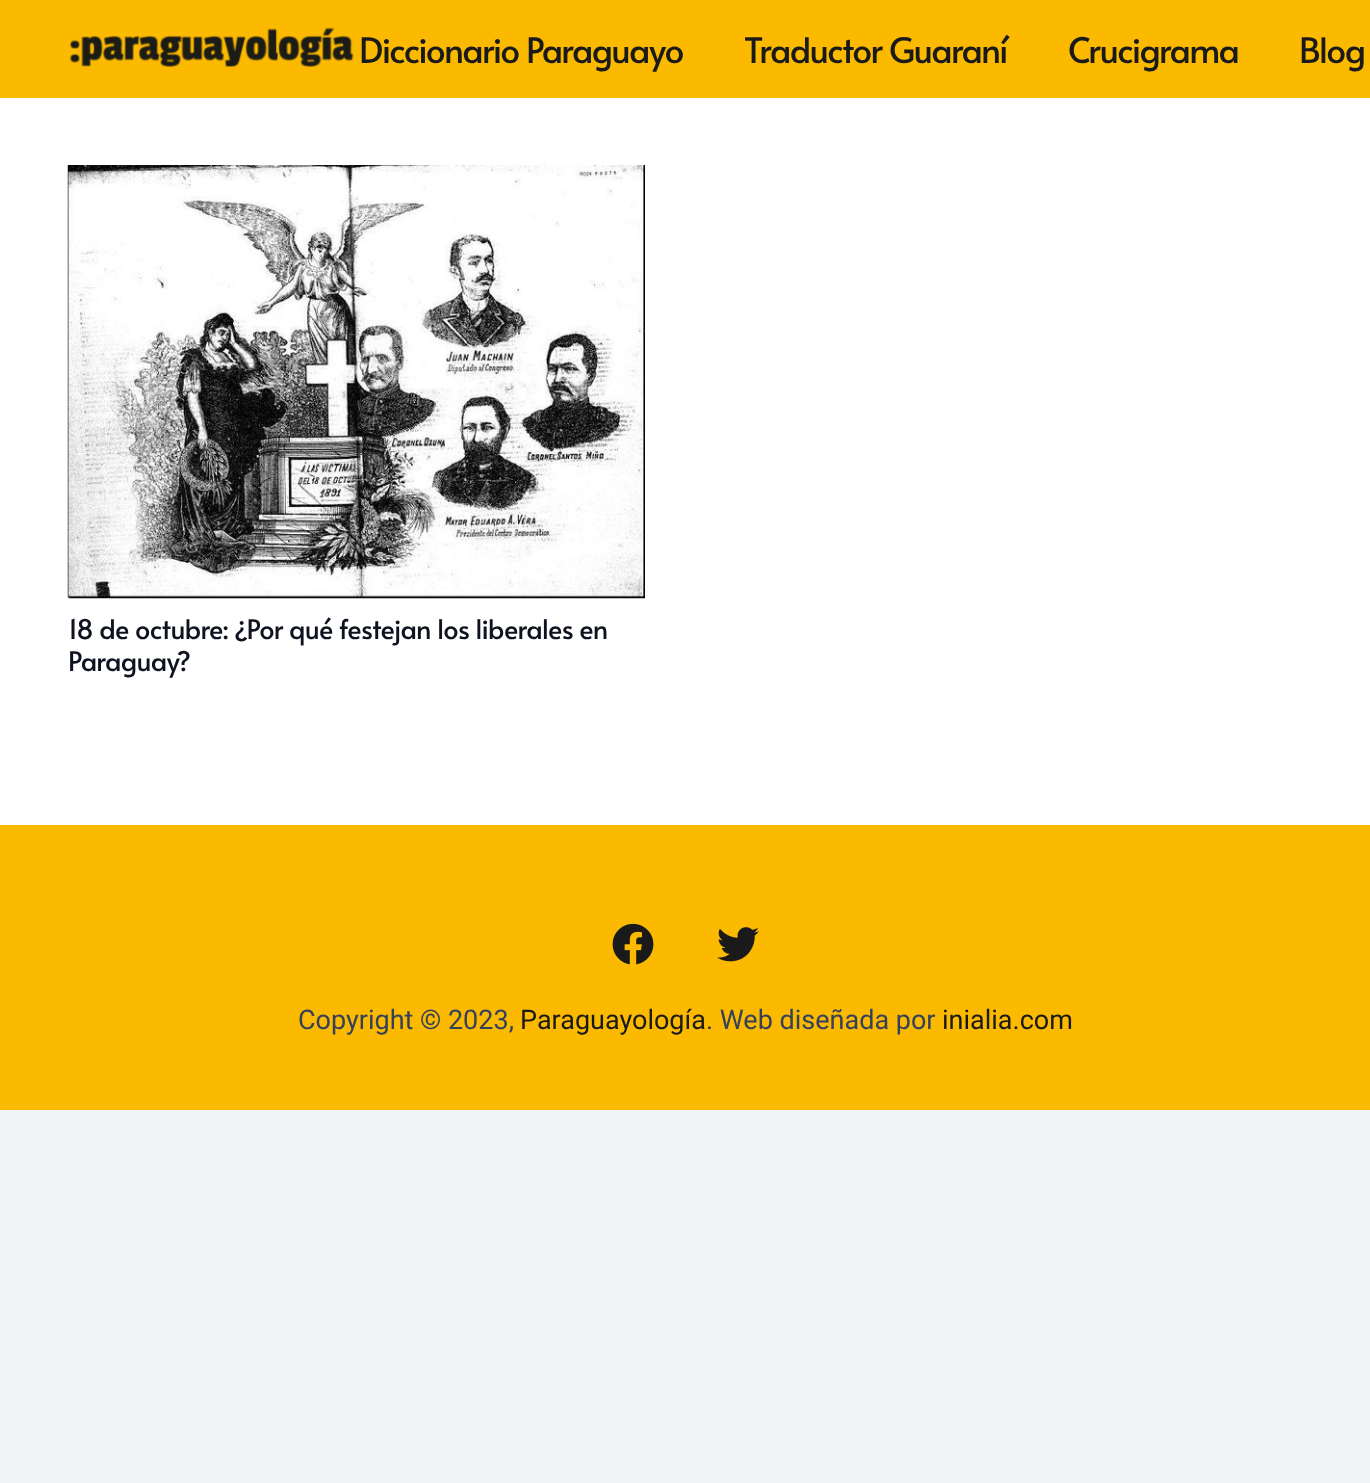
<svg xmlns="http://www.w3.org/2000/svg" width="1370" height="1483">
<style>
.a{font:35px Alata;letter-spacing:-1.4px;fill:#1a1a1a}
.b{font:27px Alata;letter-spacing:-0.55px;fill:#0f131f}
.c{font:27px Roboto;fill:#35415b}
.d{font:27px Roboto;fill:#1a1a1a}
</style>
<rect width="100%" height="100%" fill="#f2f4f7"/>
<path fill="#fff" d="M0 98h1370v727H0z"/>
<path fill="#fbba00" d="M0 0h1370v98H0z"/>
<image href="1.png" x="70" y="27" width="284" height="40"/>
<image href="2.png" x="67" y="165" width="578" height="434"/>
<path fill="#fbba00" d="M0 825h1370v285H0z"/>
<image href="3.png" x="612" y="923" width="42" height="42"/>
<image href="4.png" x="717" y="927" width="42" height="35"/>
<text class="a" x="359" y="63">Diccionario Paraguayo</text>
<text class="a" x="744" y="63">Traductor Guaraní</text>
<text class="a" x="1068" y="63">Crucigrama</text>
<text class="a" x="1299" y="63">Blog</text>
<text class="b" x="68" y="639">18 de octubre: ¿Por qué festejan los liberales en</text>
<text class="b" x="68" y="671">Paraguay?</text>
<text class="c" x="298" y="1029">Copyright © 2023,</text>
<text class="d" x="520" y="1029">Paraguayología</text>
<text class="c" x="706" y="1029">. Web diseñada por</text>
<text class="d" x="942" y="1029">inialia.com</text>
</svg>
